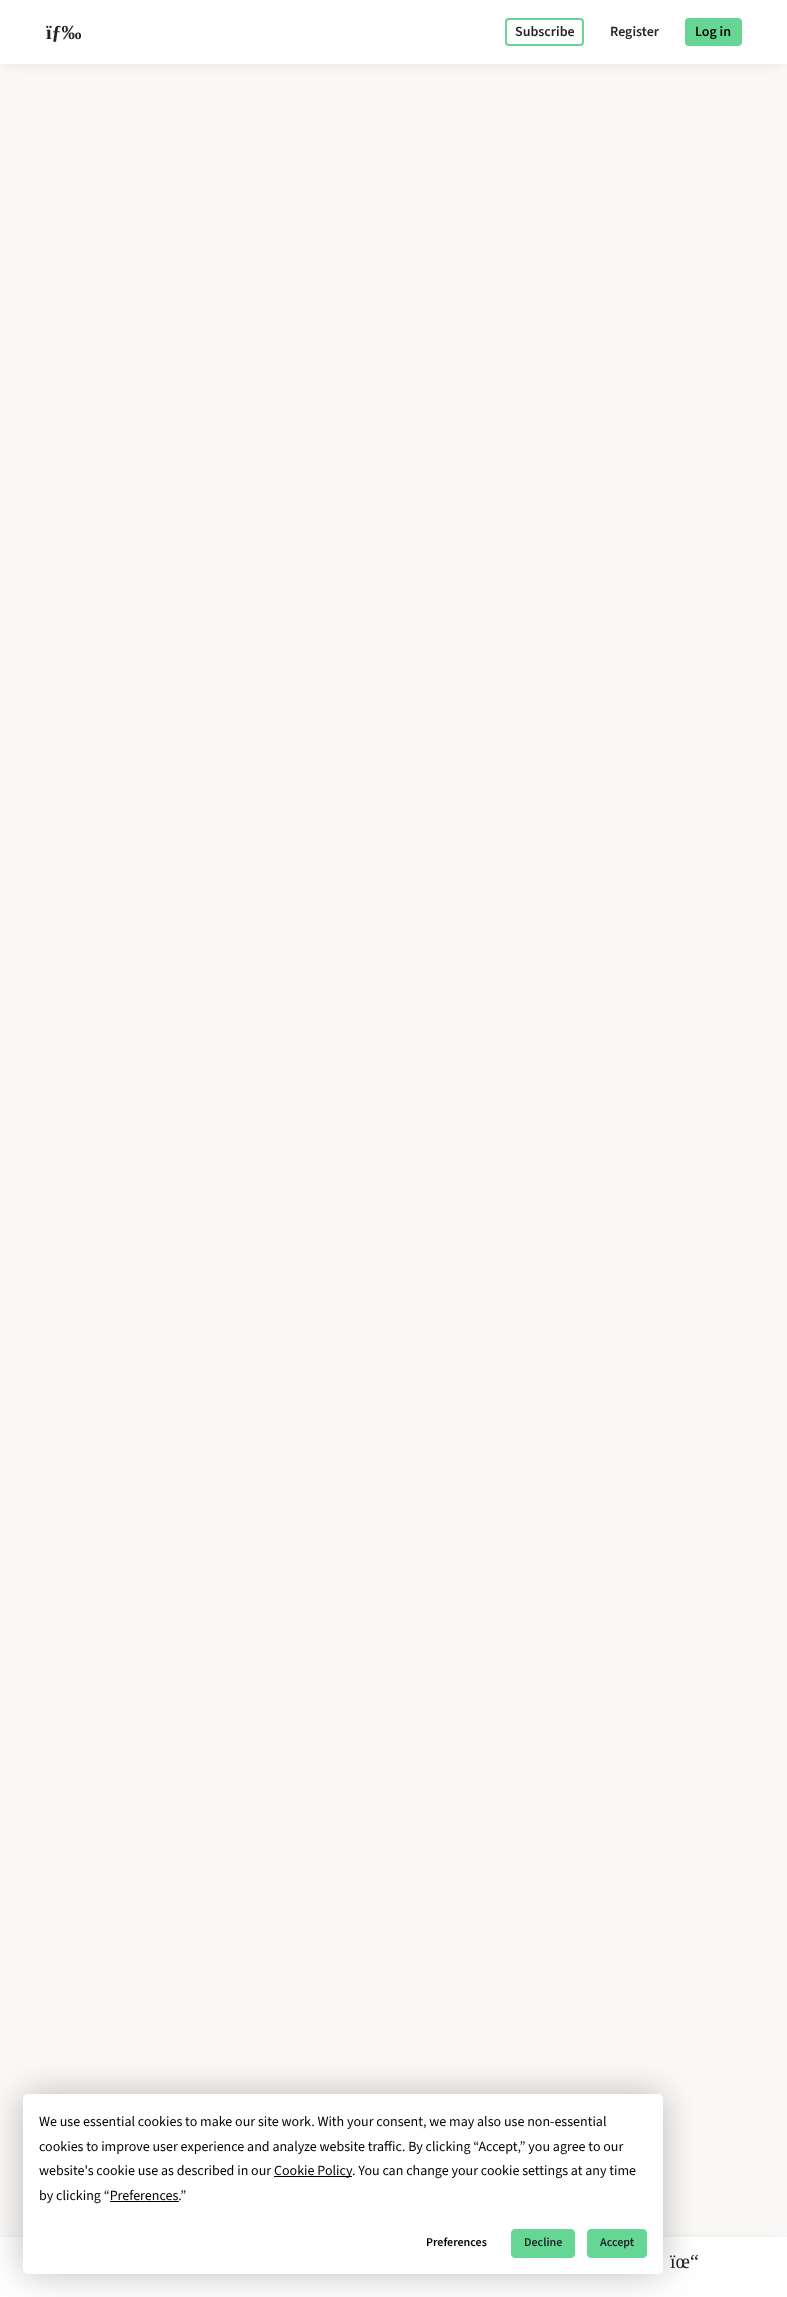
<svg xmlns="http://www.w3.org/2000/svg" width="787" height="2297">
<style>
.a{font:bold 20px Liberation Serif;fill:#212529}
.b{font:600 14px 'Source Sans 3';fill:#212529}
.c{font:600 14px 'Source Sans 3';fill:#000}
.d{font:20px Liberation Serif;fill:#212529}
.e{font:14px 'Source Sans 3';fill:#000}
.f{font:600 12px 'Source Sans 3';fill:#000}
.g{font:600 12px 'Source Sans 3';fill:#212529}
</style>
<rect width="100%" height="100%" fill="#faf9f7"/>
<path fill="#b3aca78c" filter="blur(7.5px)" d="M4 4h779v56H4z"/>
<path fill="#fff" d="M0 0h787v64H0z"/>
<rect fill="none" stroke="#65d693" stroke-width="2" x="506" y="19" width="77" height="26" rx="3"/>
<rect fill="#65d693" stroke="#65d693" stroke-width="2" x="686" y="19" width="55" height="26" rx="3"/>
<path fill="#b3aca78c" filter="blur(7.5px)" d="M4 2245h779v52H4z"/>
<path fill="#fff" d="M0 2237h787v60H0z"/>
<rect fill="#00000040" filter="blur(17.5px)" x="23" y="2094" width="640" height="180" rx="5"/>
<rect fill="#fff" x="23" y="2094" width="640" height="180" rx="5"/>
<path fill="#000" d="M274 2176h78v1H274z"/>
<path fill="#000" d="M110 2201h69v1H110z"/>
<rect fill="#65d693" stroke="#65d693" x="511.5" y="2229.5" width="63" height="28" rx="3.5"/>
<rect fill="#65d693" stroke="#65d693" x="587.5" y="2229.5" width="59" height="28" rx="3.5"/>
<text class="a" x="46" y="39">ïƒ‰</text>
<text class="b" x="515" y="36">Subscribe</text>
<text class="b" x="610" y="36">Register</text>
<text class="c" x="695" y="36">Log in</text>
<text class="d" x="670" y="2268">ïœ“</text>
<text class="e" x="39" y="2126">We use essential cookies to make our site work. With your consent, we may also use non-essential</text>
<text class="e" x="39" y="2151">cookies to improve user experience and analyze website traffic. By clicking “Accept,” you agree to our</text>
<text class="e" x="39" y="2175">website's cookie use as described in our</text>
<text class="e" x="274" y="2175">Cookie Policy</text>
<text class="e" x="352" y="2175">. You can change your cookie settings at any time</text>
<text class="e" x="39" y="2200">by clicking “Preferences.”</text>
<text class="f" x="426" y="2246">Preferences</text>
<text class="g" x="524" y="2246">Decline</text>
<text class="g" x="600" y="2246">Accept</text>
</svg>
